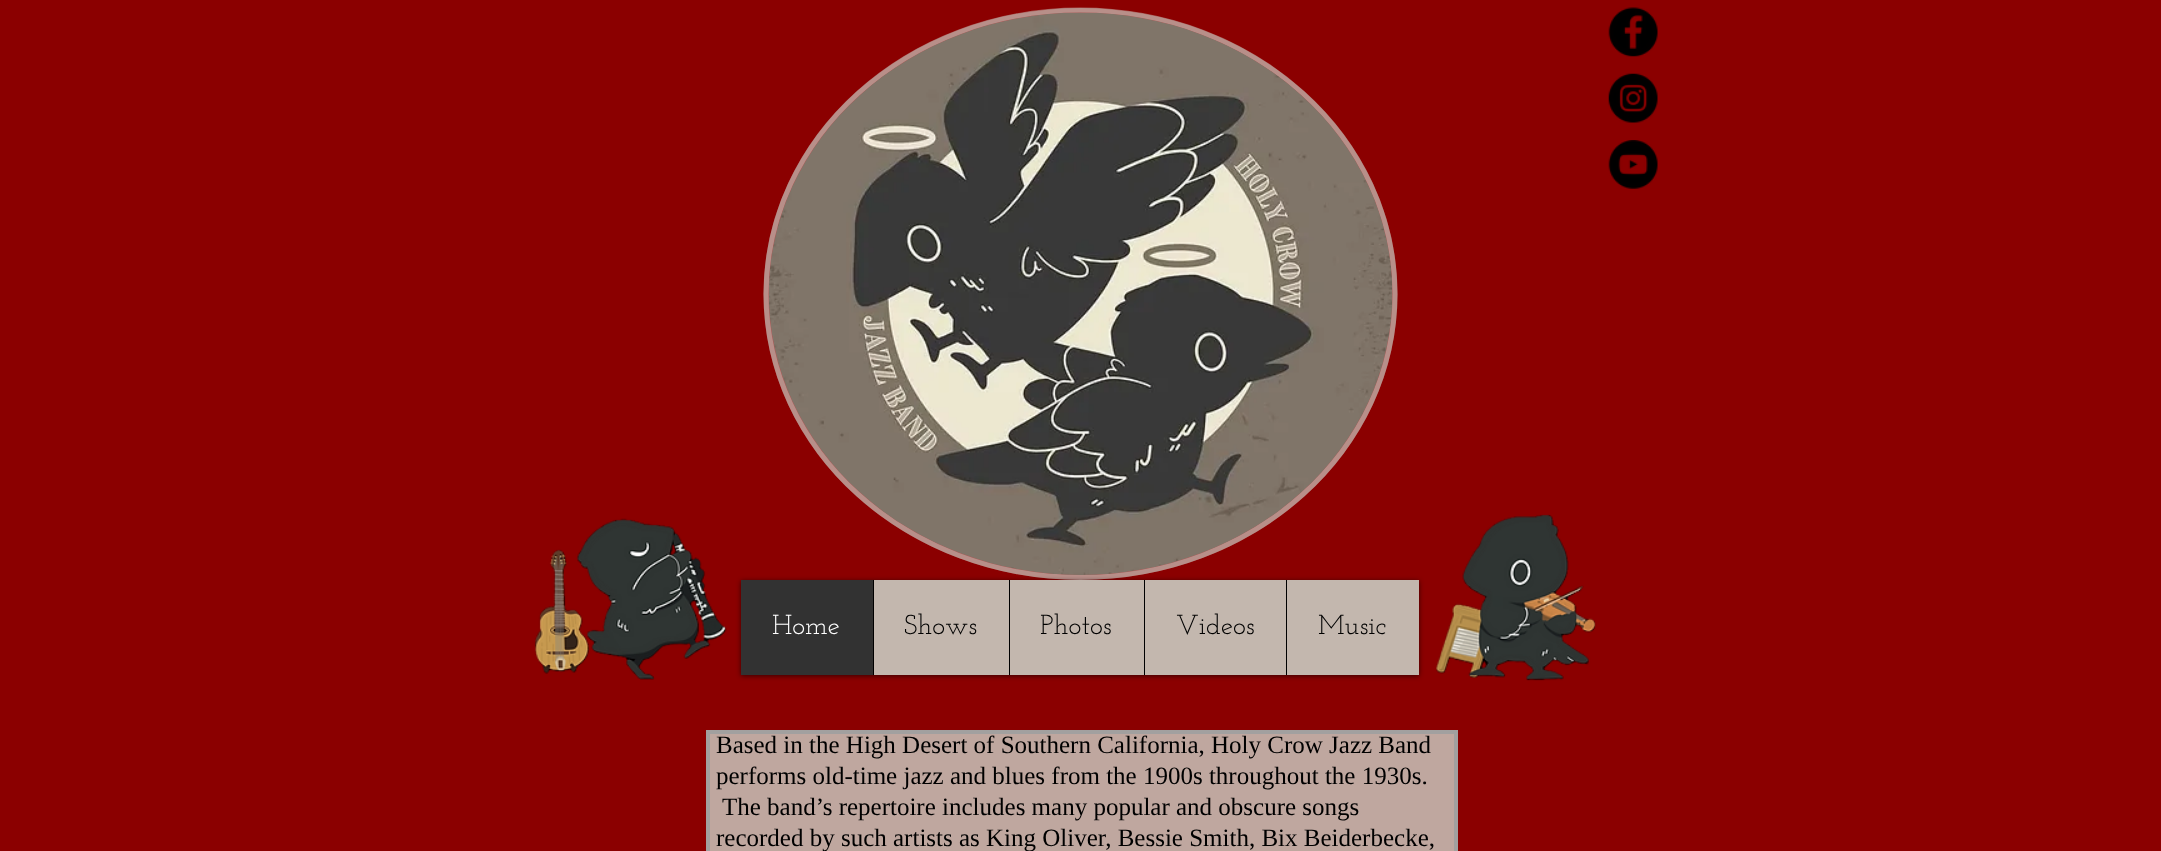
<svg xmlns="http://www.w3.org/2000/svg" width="2161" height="851">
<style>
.a{font:27.5px Josefin Slab;fill:#fff}
.b{font:27.5px Josefin Slab;fill:#000}
.c{font:25px Liberation Serif;fill:#000}
</style>
<defs>
<clipPath id="clip1"><path d="M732 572h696v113h-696zm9 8h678v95h-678z" clip-rule="evenodd"/></clipPath>
</defs>
<rect width="100%" height="100%" fill="#8b0000"/>
<ellipse fill="#a95f5b" cx="1080.5" cy="294" rx="317" ry="286"/>
<path fill="none" stroke="#c7c2b97d" stroke-width="5" d="M1080.5 10c173.5 0 314.5 127 314.5 284c0 156.5-141 283.5-314.5 283.5c-173.5 0-314.5-127-314.5-283.5c0-157 141-284 314.5-284z"/>
<image href="1.png" x="769" y="12" width="624" height="563"/>
<image href="2.png" x="1608" y="7" width="50" height="50"/>
<image href="3.png" x="1608" y="73" width="50" height="50"/>
<image href="4.png" x="1608" y="140" width="50" height="49"/>
<image href="5.png" x="534" y="518" width="193" height="162"/>
<g clip-path="url(#clip1)">
<path fill="#00000099" filter="blur(2.5px)" d="M741 581h678v95H741z"/>
</g>
<path fill="#c7c2b9f0" d="M874 580h545v95H874z"/>
<path fill="#323232" d="M741 580h132v95H741z"/>
<path fill="#000" d="M873 580h1v95H873z"/>
<path fill="#000" d="M1009 580h1v95H1009z"/>
<path fill="#000" d="M1144 580h1v95H1144z"/>
<path fill="#000" d="M1286 580h1v95H1286z"/>
<image href="6.png" x="1436" y="514" width="161" height="167"/>
<path fill="#bfa79f" stroke="#a2a09f" stroke-width="4" d="M708 732h748v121H708z"/>
<text class="a" x="772" y="634">Home</text>
<text class="b" x="904" y="634">Shows</text>
<text class="b" x="1040" y="634">Photos</text>
<text class="b" x="1176" y="634">Videos</text>
<text class="b" x="1318" y="634">Music</text>
<text class="c" x="716" y="753">Based in the High Desert of Southern California, Holy Crow Jazz Band</text>
<text class="c" x="716" y="784">performs old-time jazz and blues from the 1900s throughout the 1930s.</text>
<text class="c" x="722" y="815">The band’s repertoire includes many popular and obscure songs</text>
<text class="c" x="716" y="846">recorded by such artists as King Oliver, Bessie Smith, Bix Beiderbecke,</text>
</svg>
